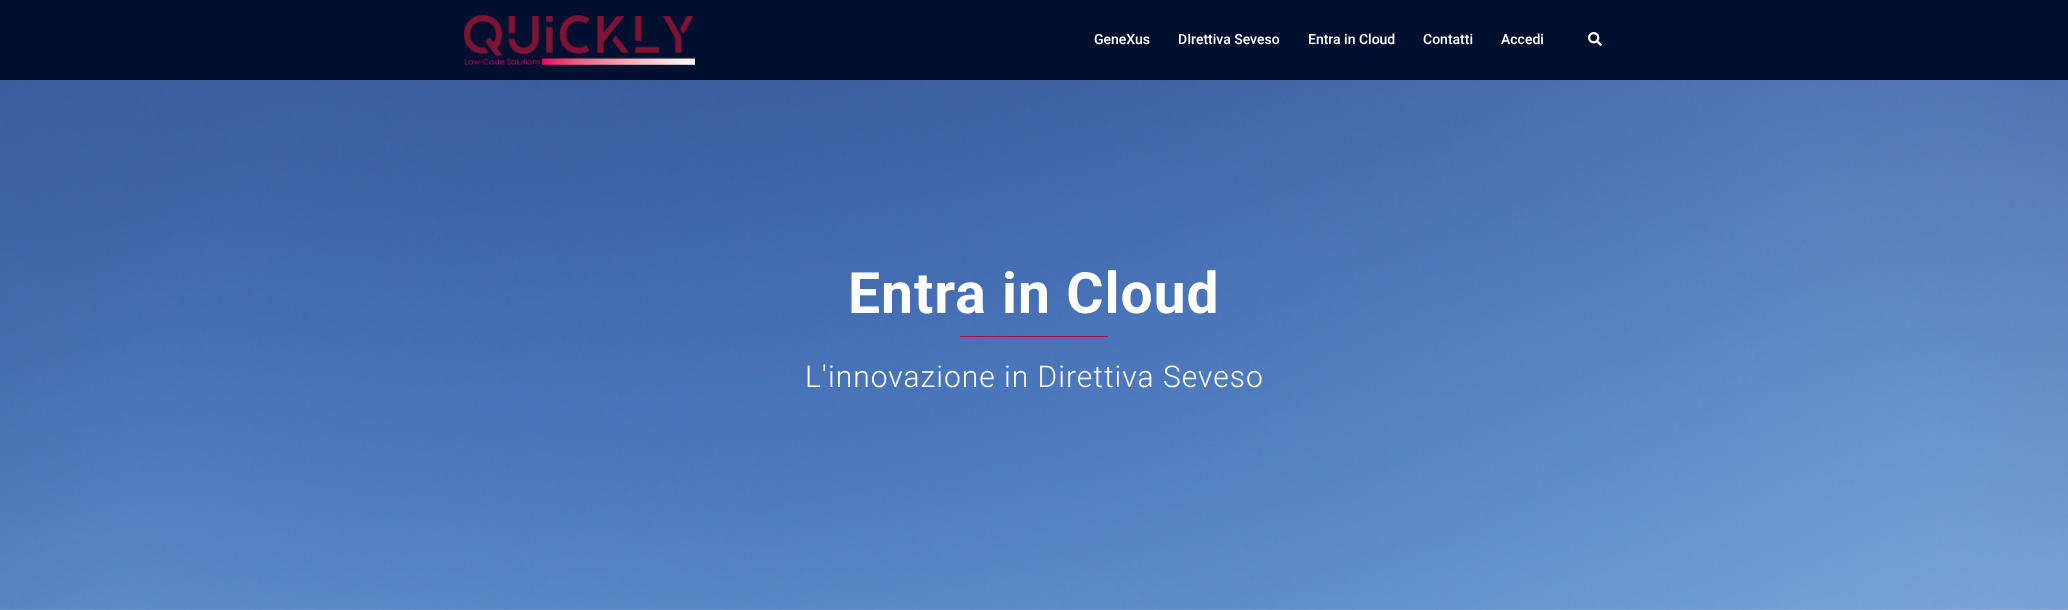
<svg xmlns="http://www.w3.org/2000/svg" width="2068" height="610">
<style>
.a{font:500 14px Roboto;fill:#fff}
.b{font:bold 57px Roboto;letter-spacing:1px;fill:#fff}
.c{font:300 30px Roboto;letter-spacing:1px;fill:#fff}
</style>
<rect width="100%" height="100%" fill="#fff"/>
<path fill="#00102e" d="M0 0h2068v80H0z"/>
<image href="1.png" x="464" y="15" width="231" height="50"/>
<image href="2.png" x="1588" y="32" width="14" height="14"/>
<image href="3.png" x="0" y="80" width="2068" height="530"/>
<path fill="#ae0d48" d="M960 336h148v1H960z"/>
<text class="a" x="1094" y="44">GeneXus</text>
<text class="a" x="1178" y="44">DIrettiva Seveso</text>
<text class="a" x="1308" y="44">Entra in Cloud</text>
<text class="a" x="1423" y="44">Contatti</text>
<text class="a" x="1501" y="44">Accedi</text>
<text class="b" x="848" y="313">Entra in Cloud</text>
<text class="c" x="805" y="387">L'innovazione in Direttiva Seveso</text>
</svg>
